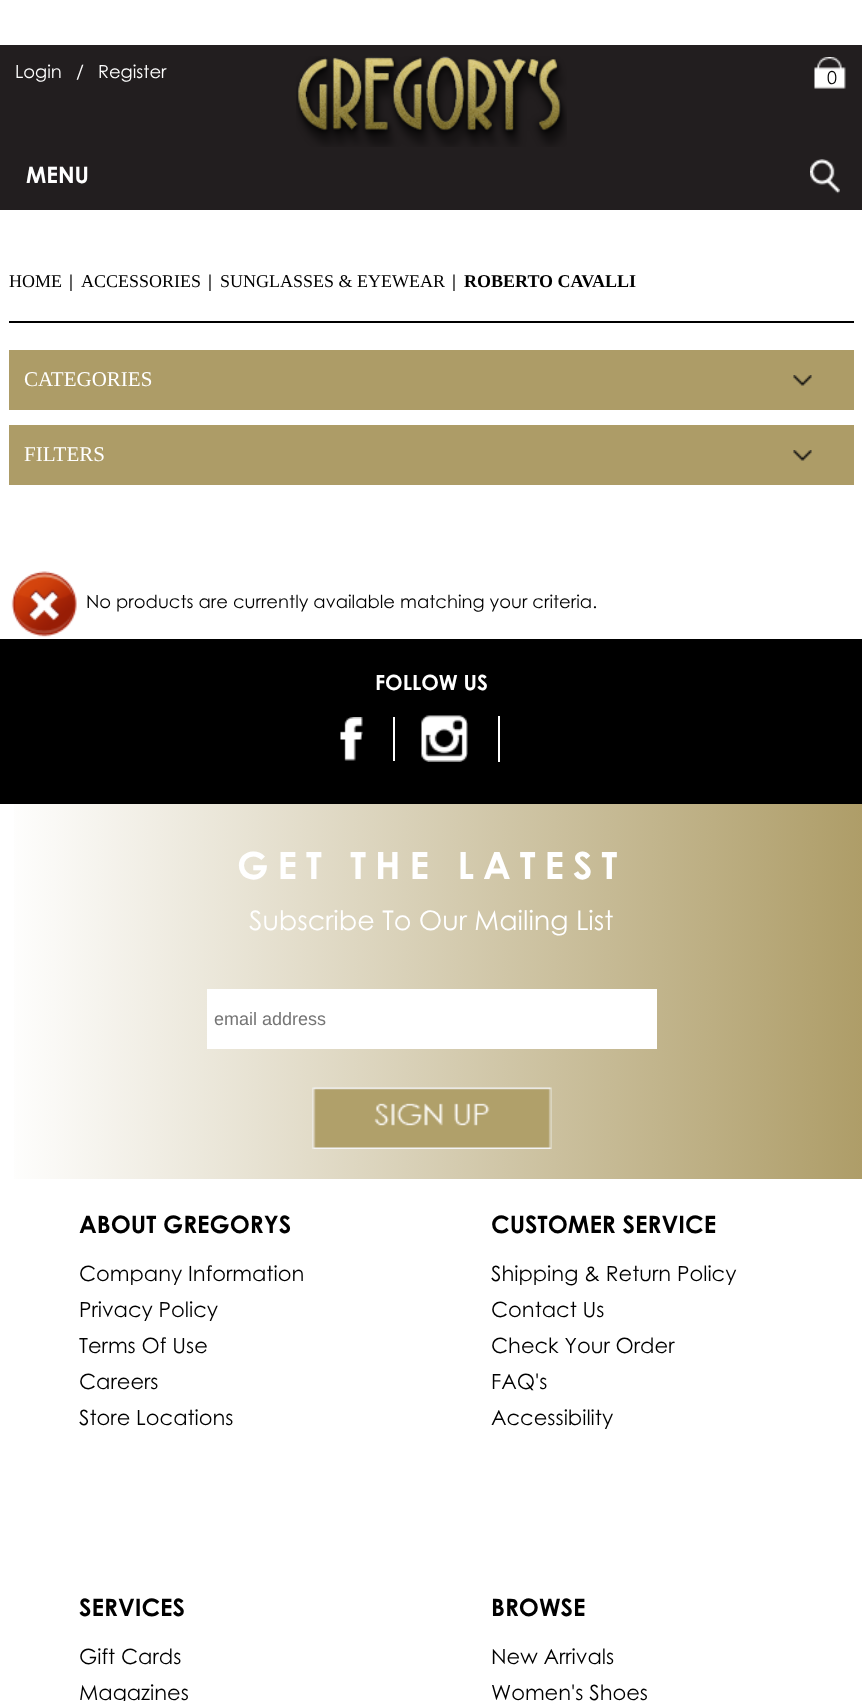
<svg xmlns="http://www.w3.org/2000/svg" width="862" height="1701">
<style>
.a{font:18px Century Gothic;fill:#fff}
.b{font:18px Century Gothic;fill:#000}
.c{font:bold 22.5px Century Gothic;fill:#fff}
.d{font:18px Liberation Serif;fill:#000}
.e{font:bold 18px Liberation Serif;fill:#000}
.f{font:21px Liberation Serif;fill:#fff}
.g{font:bold 21px Century Gothic;fill:#fff}
.h{font:bold 37.5px Century Gothic;letter-spacing:9px;fill:#fff}
.i{font:27px Century Gothic;fill:#fff}
.j{font:18px Liberation Sans;fill:#757575}
.k{font:bold 24px Century Gothic;fill:#000}
.l{font:21px Century Gothic;fill:#000}
</style>
<defs>
<linearGradient id="g1" gradientUnits="userSpaceOnUse" x1="0" y1="992" x2="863" y2="992"><stop offset="0" stop-color="#fff"/><stop offset="1" stop-color="#ae9d68"/></linearGradient>
</defs>
<rect width="100%" height="100%" fill="#fff"/>
<path fill="#221e1f" d="M0 45h862v165H0z"/>
<image href="1.png" x="296" y="56" width="271" height="91"/>
<image href="2.png" x="814" y="57" width="32" height="32"/>
<image href="3.png" x="810" y="159" width="30" height="35"/>
<path fill="#000" d="M9 321h845v2H9z"/>
<path fill="#ad9c67" d="M9 350h845v60H9z"/>
<image href="4.png" x="793" y="375" width="19" height="11"/>
<path fill="#ad9c67" d="M9 425h845v60H9z"/>
<image href="4.png" x="793" y="450" width="19" height="11"/>
<image href="5.png" x="11" y="571" width="66" height="66"/>
<path fill="#000" d="M0 639h862v165H0z"/>
<path fill="#fff" d="M393 717h2v44H393z"/>
<image href="6.png" x="340" y="717" width="23" height="44"/>
<path fill="#fff" d="M498 716h2v46H498z"/>
<image href="7.png" x="421" y="715" width="47" height="47"/>
<path fill="url(#g1)" d="M14 804h848v375H14z"/>
<path fill="#fff" d="M207 989h450v60H207z"/>
<image href="8.png" x="312" y="1087" width="240" height="62"/>
<text class="a" x="15" y="78">Login</text>
<text class="a" x="76" y="78">/</text>
<text class="a" x="98" y="78">Register</text>
<text class="b" x="827" y="84">0</text>
<text class="c" x="26" y="183">MENU</text>
<text class="d" x="9" y="287">HOME</text>
<text class="e" x="69" y="287">|</text>
<text class="d" x="81" y="287">ACCESSORIES</text>
<text class="e" x="208" y="287">|</text>
<text class="d" x="220" y="287">SUNGLASSES &amp; EYEWEAR</text>
<text class="e" x="452" y="287">|</text>
<text class="e" x="464" y="287">ROBERTO CAVALLI</text>
<text class="f" x="24" y="386">CATEGORIES</text>
<text class="f" x="24" y="461">FILTERS</text>
<text class="b" x="86" y="608">No products are currently available matching your criteria.</text>
<text class="g" x="375" y="690">FOLLOW US</text>
<text class="h" x="237" y="879">GET THE LATEST</text>
<text class="i" x="249" y="930">Subscribe To Our Mailing List</text>
<text class="j" x="214" y="1025">email address</text>
<text class="k" x="79" y="1233">ABOUT GREGORYS</text>
<text class="l" x="79" y="1281">Company Information</text>
<text class="l" x="79" y="1317">Privacy Policy</text>
<text class="l" x="79" y="1353">Terms Of Use</text>
<text class="l" x="79" y="1389">Careers</text>
<text class="l" x="79" y="1425">Store Locations</text>
<text class="k" x="491" y="1233">CUSTOMER SERVICE</text>
<text class="l" x="491" y="1281">Shipping &amp; Return Policy</text>
<text class="l" x="491" y="1317">Contact Us</text>
<text class="l" x="491" y="1353">Check Your Order</text>
<text class="l" x="491" y="1389">FAQ's</text>
<text class="l" x="491" y="1425">Accessibility</text>
<text class="k" x="79" y="1616">SERVICES</text>
<text class="l" x="79" y="1664">Gift Cards</text>
<text class="l" x="79" y="1700">Magazines</text>
<text class="k" x="491" y="1616">BROWSE</text>
<text class="l" x="491" y="1664">New Arrivals</text>
<text class="l" x="491" y="1700">Women's Shoes</text>
</svg>
